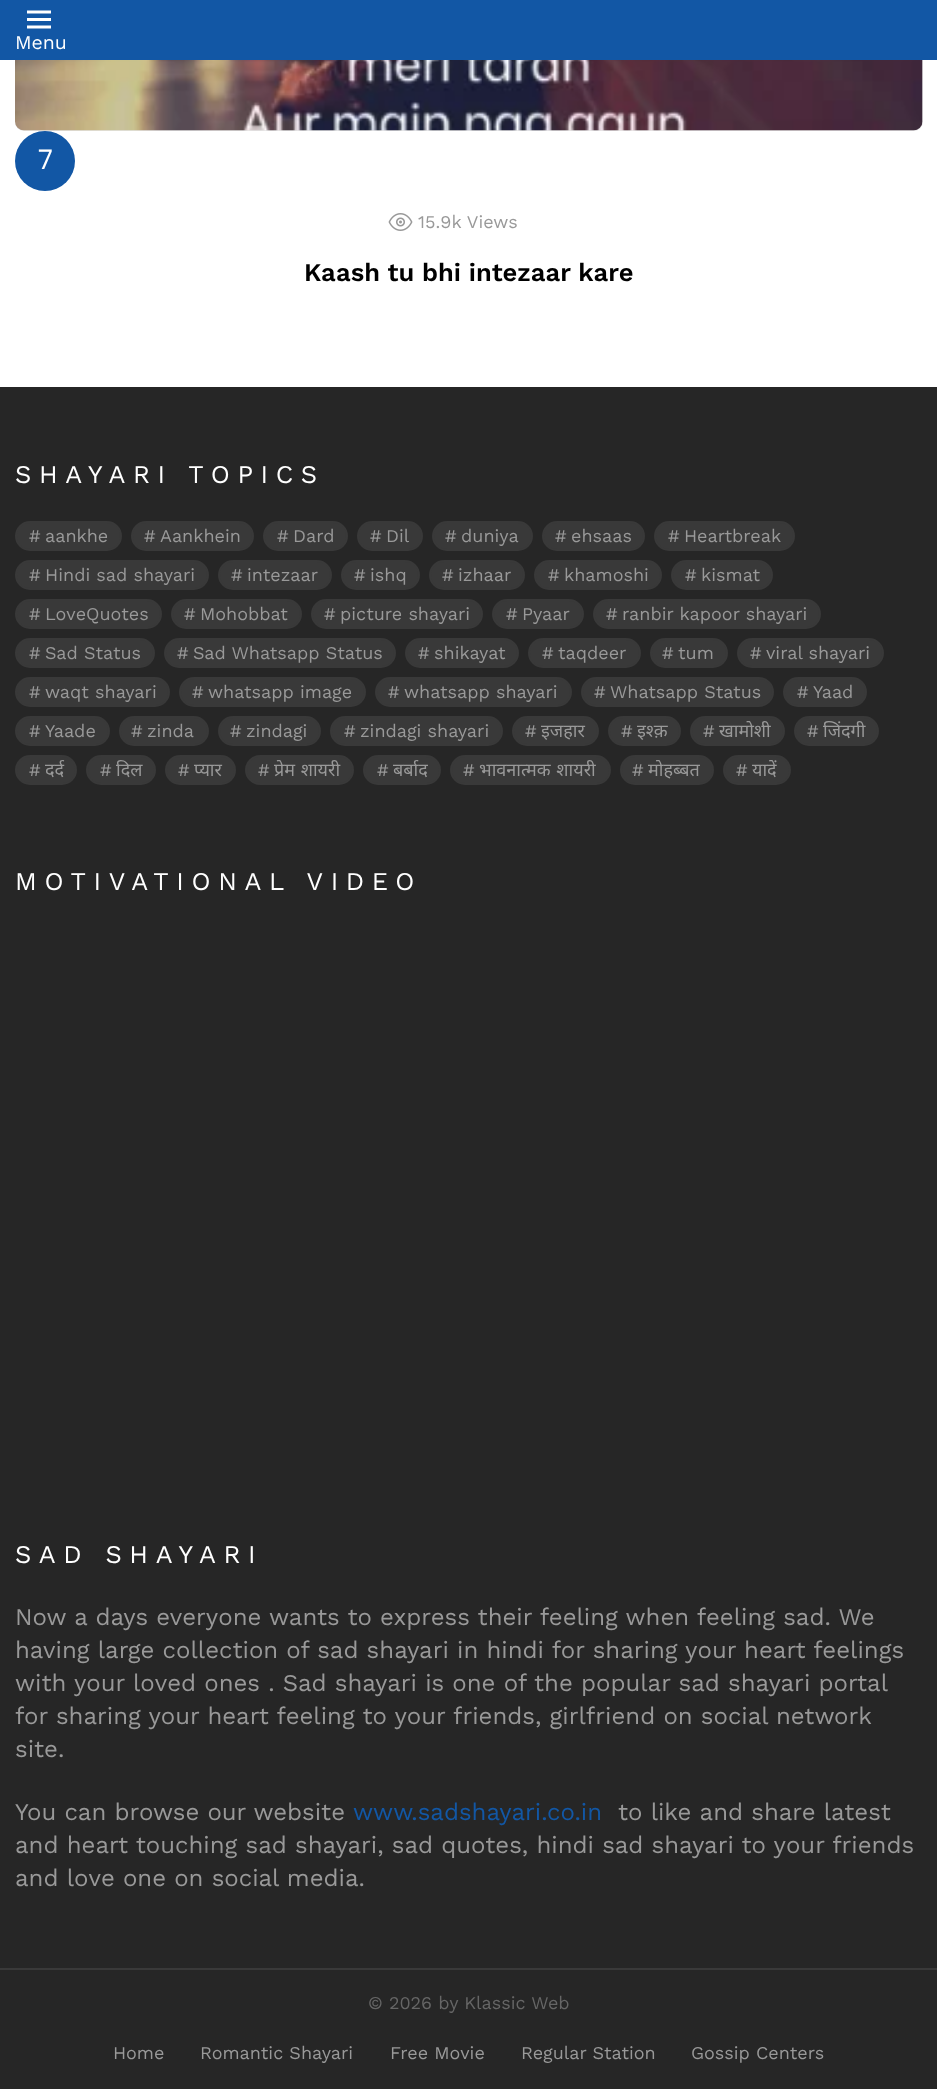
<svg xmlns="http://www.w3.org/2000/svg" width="937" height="2089">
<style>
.a{font:19.5px Work Sans;fill:#fff}
.b{font:27px Poppins;fill:#fff}
.c{font:18px Work Sans;fill:#999}
.d{font:600 25.5px Work Sans;fill:#000}
.e{font:25.5px Work Sans;letter-spacing:7.6px;fill:#fff}
.f{font:18px Noto Sans;fill:#999}
.g{font:24px Work Sans;fill:#999}
.h{font:24px Work Sans;fill:#1257a5}
.i{font:18px Work Sans;fill:#666}
</style>
<rect width="100%" height="100%" fill="#fff"/>
<rect fill="#e6e6e6" x="15" y="-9" width="908" height="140" rx="9"/>
<path fill="#1257a5" d="M0 0h937v60H0z"/>
<image href="1.png" x="27" y="10" width="24" height="19"/>
<image href="2.png" x="15" y="60" width="908" height="71"/>
<circle fill="#1257a5" cx="45" cy="161" r="30"/>
<image href="3.png" x="388" y="213" width="25" height="18"/>
<path fill="#262626" d="M0 387h937v1581H0z"/>
<path fill="#393939" d="M0 1968h937v2H0z"/>
<path fill="#262626" d="M0 1970h937v119H0z"/>
<text class="a" x="15" y="49">Menu</text>
<text class="b" x="38" y="169">7</text>
<text class="c" x="418" y="228">15.9k Views</text>
<text class="d" x="304" y="281">Kaash tu bhi intezaar kare</text>
<text class="e" x="15" y="483">SHAYARI TOPICS</text>
<text class="c" x="29" y="542">#</text>
<text class="c" x="45" y="542">aankhe</text>
<rect fill="#9999992b" stroke="#393939" stroke-width="2" x="16" y="522" width="105" height="28" rx="14"/>
<text class="c" x="144" y="542">#</text>
<text class="c" x="160" y="542">Aankhein</text>
<rect fill="#9999992b" stroke="#393939" stroke-width="2" x="132" y="522" width="121" height="28" rx="14"/>
<text class="c" x="277" y="542">#</text>
<text class="c" x="293" y="542">Dard</text>
<rect fill="#9999992b" stroke="#393939" stroke-width="2" x="264" y="522" width="83" height="28" rx="14"/>
<text class="c" x="370" y="542">#</text>
<text class="c" x="386" y="542">Dil</text>
<rect fill="#9999992b" stroke="#393939" stroke-width="2" x="358" y="522" width="64" height="28" rx="14"/>
<text class="c" x="445" y="542">#</text>
<text class="c" x="461" y="542">duniya</text>
<rect fill="#9999992b" stroke="#393939" stroke-width="2" x="433" y="522" width="99" height="28" rx="14"/>
<text class="c" x="555" y="542">#</text>
<text class="c" x="571" y="542">ehsaas</text>
<rect fill="#9999992b" stroke="#393939" stroke-width="2" x="543" y="522" width="101" height="28" rx="14"/>
<text class="c" x="668" y="542">#</text>
<text class="c" x="684" y="542">Heartbreak</text>
<rect fill="#9999992b" stroke="#393939" stroke-width="2" x="655" y="522" width="139" height="28" rx="14"/>
<text class="c" x="29" y="581">#</text>
<text class="c" x="45" y="581">Hindi sad shayari</text>
<rect fill="#9999992b" stroke="#393939" stroke-width="2" x="16" y="561" width="192" height="28" rx="14"/>
<text class="c" x="231" y="581">#</text>
<text class="c" x="247" y="581">intezaar</text>
<rect fill="#9999992b" stroke="#393939" stroke-width="2" x="219" y="561" width="112" height="28" rx="14"/>
<text class="c" x="354" y="581">#</text>
<text class="c" x="370" y="581">ishq</text>
<rect fill="#9999992b" stroke="#393939" stroke-width="2" x="342" y="561" width="77" height="28" rx="14"/>
<text class="c" x="442" y="581">#</text>
<text class="c" x="458" y="581">izhaar</text>
<rect fill="#9999992b" stroke="#393939" stroke-width="2" x="430" y="561" width="94" height="28" rx="14"/>
<text class="c" x="548" y="581">#</text>
<text class="c" x="564" y="581">khamoshi</text>
<rect fill="#9999992b" stroke="#393939" stroke-width="2" x="535" y="561" width="126" height="28" rx="14"/>
<text class="c" x="685" y="581">#</text>
<text class="c" x="701" y="581">kismat</text>
<rect fill="#9999992b" stroke="#393939" stroke-width="2" x="672" y="561" width="100" height="28" rx="14"/>
<text class="c" x="29" y="620">#</text>
<text class="c" x="45" y="620">LoveQuotes</text>
<rect fill="#9999992b" stroke="#393939" stroke-width="2" x="16" y="600" width="145" height="28" rx="14"/>
<text class="c" x="184" y="620">#</text>
<text class="c" x="200" y="620">Mohobbat</text>
<rect fill="#9999992b" stroke="#393939" stroke-width="2" x="172" y="600" width="129" height="28" rx="14"/>
<text class="c" x="324" y="620">#</text>
<text class="c" x="340" y="620">picture shayari</text>
<rect fill="#9999992b" stroke="#393939" stroke-width="2" x="312" y="600" width="170" height="28" rx="14"/>
<text class="c" x="506" y="620">#</text>
<text class="c" x="522" y="620">Pyaar</text>
<rect fill="#9999992b" stroke="#393939" stroke-width="2" x="493" y="600" width="90" height="28" rx="14"/>
<text class="c" x="606" y="620">#</text>
<text class="c" x="622" y="620">ranbir kapoor shayari</text>
<rect fill="#9999992b" stroke="#393939" stroke-width="2" x="594" y="600" width="226" height="28" rx="14"/>
<text class="c" x="29" y="659">#</text>
<text class="c" x="45" y="659">Sad Status</text>
<rect fill="#9999992b" stroke="#393939" stroke-width="2" x="16" y="639" width="138" height="28" rx="14"/>
<text class="c" x="177" y="659">#</text>
<text class="c" x="193" y="659">Sad Whatsapp Status</text>
<rect fill="#9999992b" stroke="#393939" stroke-width="2" x="165" y="639" width="230" height="28" rx="14"/>
<text class="c" x="418" y="659">#</text>
<text class="c" x="434" y="659">shikayat</text>
<rect fill="#9999992b" stroke="#393939" stroke-width="2" x="406" y="639" width="112" height="28" rx="14"/>
<text class="c" x="542" y="659">#</text>
<text class="c" x="558" y="659">taqdeer</text>
<rect fill="#9999992b" stroke="#393939" stroke-width="2" x="529" y="639" width="111" height="28" rx="14"/>
<text class="c" x="662" y="659">#</text>
<text class="c" x="678" y="659">tum</text>
<rect fill="#9999992b" stroke="#393939" stroke-width="2" x="651" y="639" width="76" height="28" rx="14"/>
<text class="c" x="750" y="659">#</text>
<text class="c" x="766" y="659">viral shayari</text>
<rect fill="#9999992b" stroke="#393939" stroke-width="2" x="738" y="639" width="145" height="28" rx="14"/>
<text class="c" x="29" y="698">#</text>
<text class="c" x="45" y="698">waqt shayari</text>
<rect fill="#9999992b" stroke="#393939" stroke-width="2" x="16" y="678" width="153" height="28" rx="14"/>
<text class="c" x="192" y="698">#</text>
<text class="c" x="208" y="698">whatsapp image</text>
<rect fill="#9999992b" stroke="#393939" stroke-width="2" x="180" y="678" width="185" height="28" rx="14"/>
<text class="c" x="388" y="698">#</text>
<text class="c" x="404" y="698">whatsapp shayari</text>
<rect fill="#9999992b" stroke="#393939" stroke-width="2" x="376" y="678" width="195" height="28" rx="14"/>
<text class="c" x="594" y="698">#</text>
<text class="c" x="610" y="698">Whatsapp Status</text>
<rect fill="#9999992b" stroke="#393939" stroke-width="2" x="582" y="678" width="191" height="28" rx="14"/>
<text class="c" x="797" y="698">#</text>
<text class="c" x="813" y="698">Yaad</text>
<rect fill="#9999992b" stroke="#393939" stroke-width="2" x="784" y="678" width="82" height="28" rx="14"/>
<text class="c" x="29" y="737">#</text>
<text class="c" x="45" y="737">Yaade</text>
<rect fill="#9999992b" stroke="#393939" stroke-width="2" x="16" y="717" width="93" height="28" rx="14"/>
<text class="c" x="131" y="737">#</text>
<text class="c" x="147" y="737">zinda</text>
<rect fill="#9999992b" stroke="#393939" stroke-width="2" x="120" y="717" width="88" height="28" rx="14"/>
<text class="c" x="230" y="737">#</text>
<text class="c" x="246" y="737">zindagi</text>
<rect fill="#9999992b" stroke="#393939" stroke-width="2" x="219" y="717" width="101" height="28" rx="14"/>
<text class="c" x="344" y="737">#</text>
<text class="c" x="360" y="737">zindagi shayari</text>
<rect fill="#9999992b" stroke="#393939" stroke-width="2" x="331" y="717" width="171" height="28" rx="14"/>
<text class="c" x="525" y="737">#</text>
<text class="f" x="541" y="737">इजहार</text>
<rect fill="#9999992b" stroke="#393939" stroke-width="2" x="513" y="717" width="85" height="28" rx="14"/>
<text class="c" x="621" y="737">#</text>
<text class="f" x="637" y="737">इश्क़</text>
<rect fill="#9999992b" stroke="#393939" stroke-width="2" x="609" y="717" width="71" height="28" rx="14"/>
<text class="c" x="703" y="737">#</text>
<text class="f" x="719" y="737">खामोशी</text>
<rect fill="#9999992b" stroke="#393939" stroke-width="2" x="691" y="717" width="93" height="28" rx="14"/>
<text class="c" x="807" y="737">#</text>
<text class="f" x="823" y="737">जिंदगी</text>
<rect fill="#9999992b" stroke="#393939" stroke-width="2" x="795" y="717" width="83" height="28" rx="14"/>
<text class="c" x="29" y="776">#</text>
<text class="f" x="45" y="776">दर्द</text>
<rect fill="#9999992b" stroke="#393939" stroke-width="2" x="16" y="756" width="60" height="28" rx="14"/>
<text class="c" x="100" y="776">#</text>
<text class="f" x="116" y="776">दिल</text>
<rect fill="#9999992b" stroke="#393939" stroke-width="2" x="87" y="756" width="68" height="28" rx="14"/>
<text class="c" x="178" y="776">#</text>
<text class="f" x="194" y="776">प्यार</text>
<rect fill="#9999992b" stroke="#393939" stroke-width="2" x="166" y="756" width="69" height="28" rx="14"/>
<text class="c" x="258" y="776">#</text>
<text class="f" x="274" y="776" word-spacing="1">प्रेम शायरी</text>
<rect fill="#9999992b" stroke="#393939" stroke-width="2" x="246" y="756" width="107" height="28" rx="14"/>
<text class="c" x="377" y="776">#</text>
<text class="f" x="393" y="776">बर्बाद</text>
<rect fill="#9999992b" stroke="#393939" stroke-width="2" x="364" y="756" width="76" height="28" rx="14"/>
<text class="c" x="463" y="776">#</text>
<text class="f" x="479" y="776" word-spacing="1">भावनात्मक शायरी</text>
<rect fill="#9999992b" stroke="#393939" stroke-width="2" x="451" y="756" width="159" height="28" rx="14"/>
<text class="c" x="632" y="776">#</text>
<text class="f" x="648" y="776">मोहब्बत</text>
<rect fill="#9999992b" stroke="#393939" stroke-width="2" x="621" y="756" width="92" height="28" rx="14"/>
<text class="c" x="736" y="776">#</text>
<text class="f" x="752" y="776">यादें</text>
<rect fill="#9999992b" stroke="#393939" stroke-width="2" x="724" y="756" width="66" height="28" rx="14"/>
<text class="e" x="15" y="890">MOTIVATIONAL VIDEO</text>
<text class="e" x="15" y="1563">SAD SHAYARI</text>
<text class="g" x="15" y="1625">Now a days everyone wants to express their feeling when feeling sad. We</text>
<text class="g" x="15" y="1658">having large collection of sad shayari in hindi for sharing your heart feelings</text>
<text class="g" x="15" y="1691">with your loved ones . Sad shayari is one of the popular sad shayari portal</text>
<text class="g" x="15" y="1724">for sharing your heart feeling to your friends, girlfriend on social network</text>
<text class="g" x="15" y="1757">site.</text>
<text class="g" x="15" y="1820">You can browse our website</text>
<text class="h" x="353" y="1820">www.sadshayari.co.in</text>
<text class="g" x="618" y="1820">to like and share latest</text>
<text class="g" x="15" y="1853">and heart touching sad shayari, sad quotes, hindi sad shayari to your friends</text>
<text class="g" x="15" y="1886">and love one on social media.</text>
<text class="i" x="368" y="2009">© 2026 by Klassic Web</text>
<text class="c" x="113" y="2059">Home</text>
<text class="c" x="200" y="2059">Romantic Shayari</text>
<text class="c" x="390" y="2059">Free Movie</text>
<text class="c" x="521" y="2059">Regular Station</text>
<text class="c" x="691" y="2059">Gossip Centers</text>
</svg>
